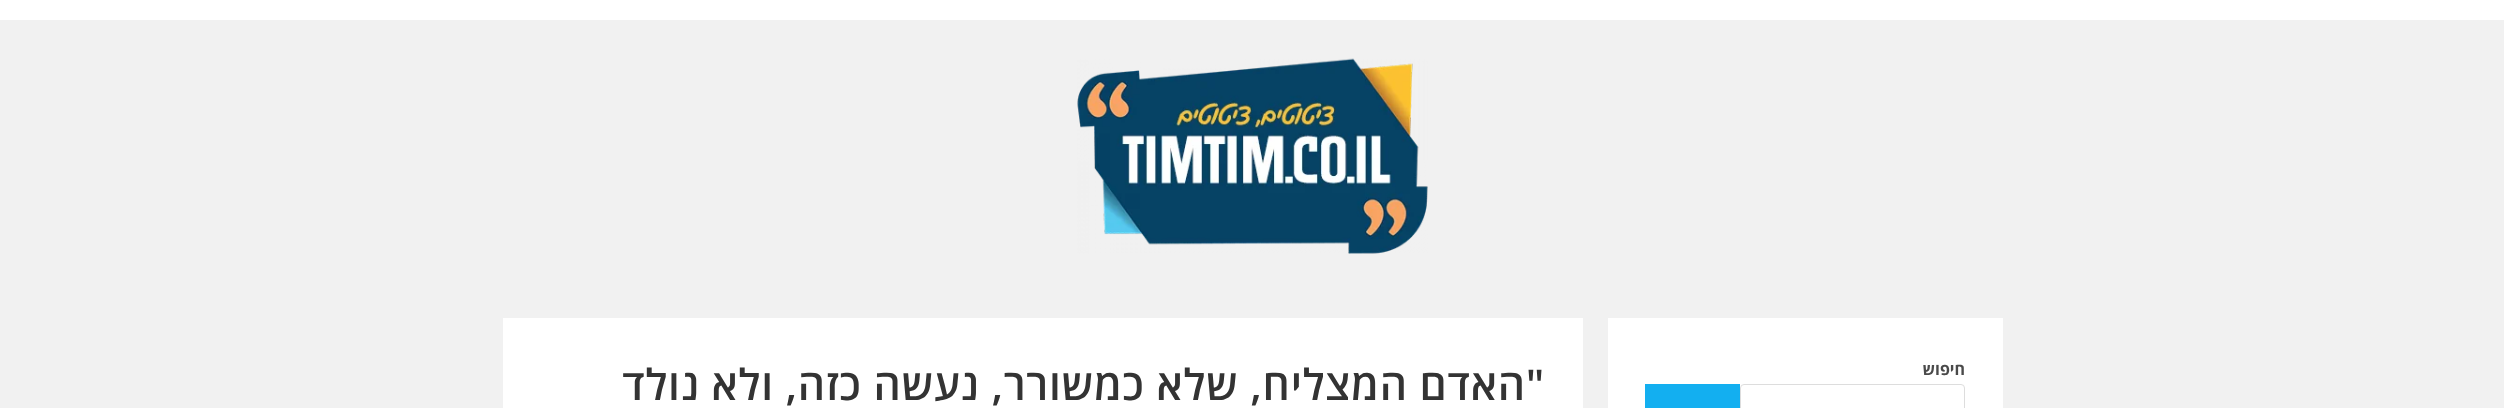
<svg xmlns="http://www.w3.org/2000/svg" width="2504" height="408">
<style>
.a{font:bold 16px Open Sans;direction:rtl;fill:#4a4a4a}
.b{font:600 42.5px Open Sans;letter-spacing:0.75px;direction:rtl;fill:#333}
</style>
<rect width="100%" height="100%" fill="#f1f1f1"/>
<path fill="#fff" d="M0 0h2504v20H0z"/>
<image href="1.png" x="1077" y="58" width="351" height="196"/>
<path fill="#fff" d="M1608 318h395v90H1608z"/>
<rect fill="none" stroke="#ddd" x="1740.5" y="384.5" width="224" height="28" rx="3.5"/>
<path fill="#13aff0" d="M1645 384h95v24H1645z"/>
<path fill="#fff" d="M503 318h1080v90H503z"/>
<text class="a" x="1965" y="375">חיפוש</text>
<text class="b" x="1545" y="400">"האדם המצליח, שלא כמשורר, נעשה כזה, ולא נולד</text>
</svg>
